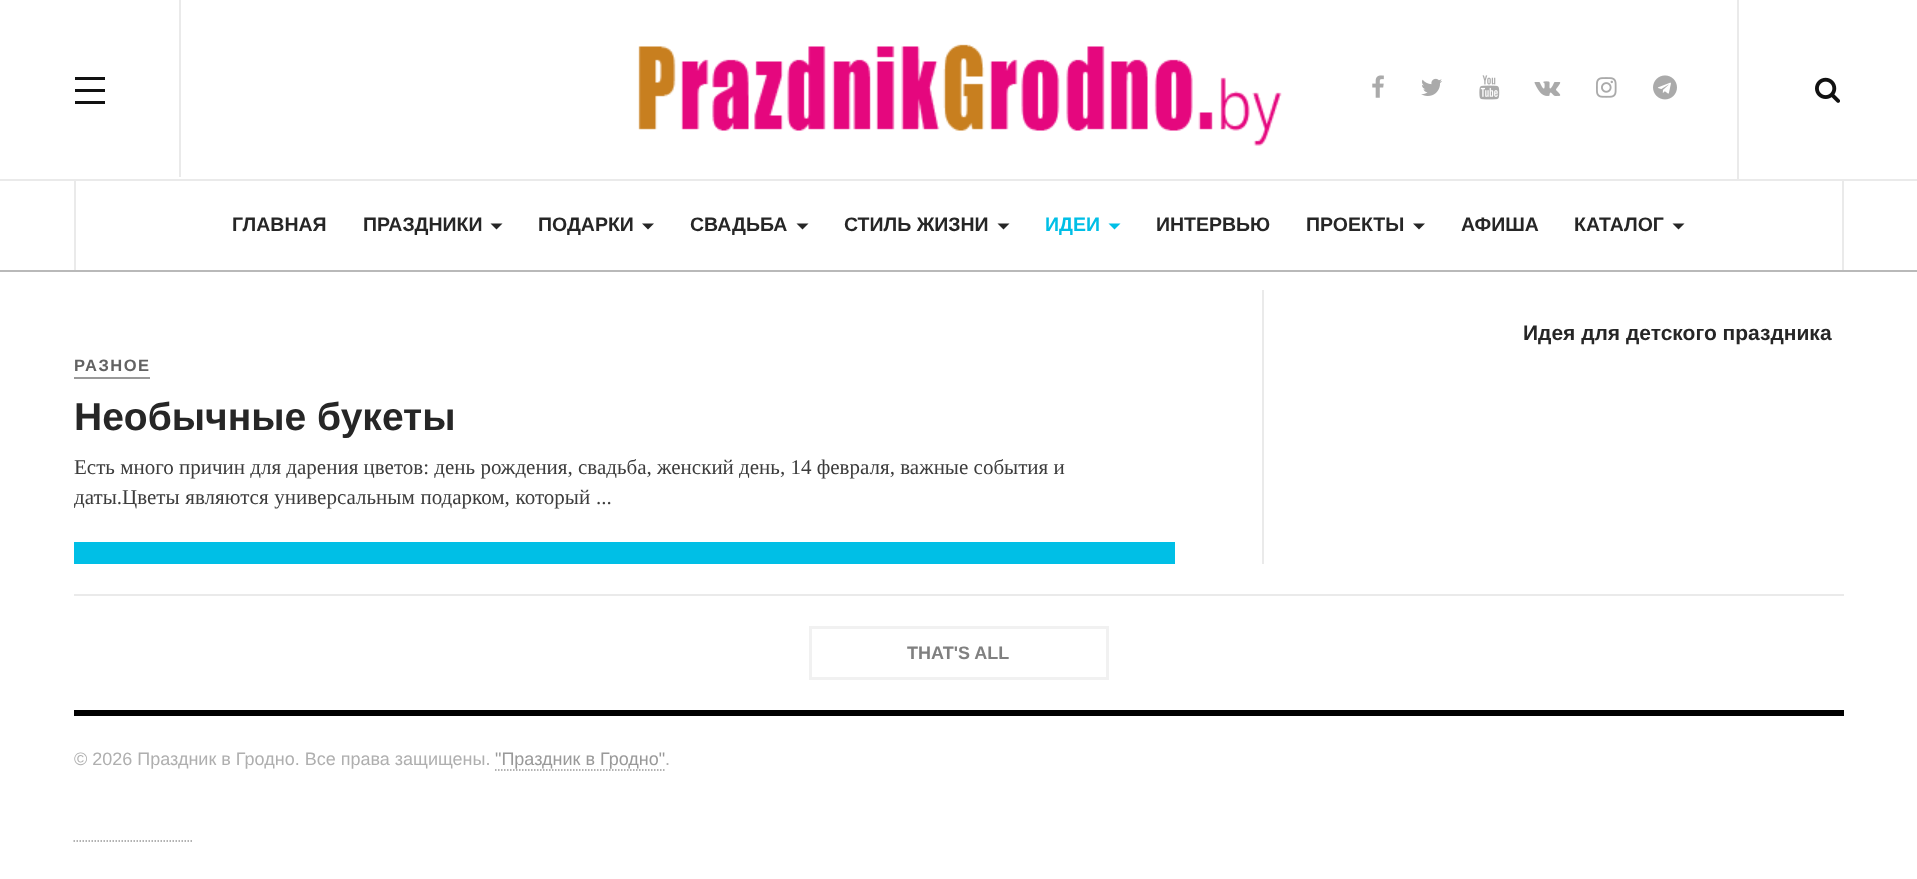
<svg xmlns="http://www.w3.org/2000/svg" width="1917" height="879">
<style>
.a{font:bold 19.5px Liberation Sans;fill:#262626}
.b{font:bold 19.5px Liberation Sans;fill:#00bfe6}
.c{font:bold 21px Liberation Sans;fill:#262626}
.d{font:bold 16.5px Liberation Sans;letter-spacing:1.5px;fill:#626262}
.e{font:bold 39px Liberation Sans;fill:#262626}
.f{font:21px Liberation Serif;fill:#3c3c3c}
.g{font:bold 18px Liberation Sans;fill:#808080}
.h{font:18px Liberation Sans;fill:#afafaf}
.i{font:18px Liberation Sans;fill:#999}
</style>
<rect width="100%" height="100%" fill="#fff"/>
<path fill="#eaeaea" d="M1842 180h2v90H1842z"/>
<path fill="#eaeaea" d="M74 180h2v90H74z"/>
<path fill="#eaeaea" d="M0 179h1917v2H0z"/>
<path fill="#eaeaea" d="M179 0h2v177H179z"/>
<path fill="#111" d="M75 89h30v3H75z"/>
<path fill="#111" d="M75 77h30v3H75z"/>
<path fill="#111" d="M75 101h30v3H75z"/>
<image href="1.png" x="638" y="44" width="644" height="102"/>
<image href="2.png" x="1372" y="75" width="12" height="23"/>
<image href="3.png" x="1421" y="78" width="21" height="18"/>
<image href="4.png" x="1479" y="75" width="21" height="25"/>
<image href="5.png" x="1534" y="81" width="27" height="15"/>
<image href="6.png" x="1596" y="77" width="21" height="21"/>
<image href="7.png" x="1653" y="75" width="24" height="25"/>
<path fill="#eaeaea" d="M1737 0h2v179H1737z"/>
<image href="8.png" x="1815" y="77" width="25" height="26"/>
<path fill="#b9b9b9" d="M0 270h1917v2H0z"/>
<path fill="#262626" d="M490.5 223.5h12l-6 6z"/>
<path fill="#262626" d="M642 223.5h12l-6 6z"/>
<path fill="#262626" d="M796.5 223.5h12l-6 6z"/>
<path fill="#262626" d="M997.5 223.5h12l-6 6z"/>
<path fill="#00bfe6" d="M1108.5 223.5h12l-6 6z"/>
<path fill="#262626" d="M1413 223.5h12l-6 6z"/>
<path fill="#262626" d="M1672.5 223.5h12l-6 6z"/>
<path fill="#eaeaea" d="M74 594h1770v2H74z"/>
<path fill="#eaeaea" d="M1262 290h2v274H1262z"/>
<path fill="#00bfe6" d="M74 542h1101v22H74z"/>
<path fill="#999" d="M74 377h76v2H74z"/>
<path fill="none" stroke="#f1f1f1" stroke-width="3" d="M810.5 627.5h297v51H810.5z"/>
<path fill="#000" d="M74 710h1770v6H74z"/>
<path fill="none" stroke="#999" stroke-width="1.5" stroke-dasharray="1.5 1.5" d="M495 770h169.5"/>
<path fill="none" stroke="#999" stroke-width="1.5" stroke-dasharray="1.5 1.5" d="M73.5 841h120"/>
<text class="a" x="232" y="231">ГЛАВНАЯ</text>
<text class="a" x="363" y="231">ПРАЗДНИКИ</text>
<text class="a" x="538" y="231">ПОДАРКИ</text>
<text class="a" x="690" y="231">СВАДЬБА</text>
<text class="a" x="844" y="231">СТИЛЬ ЖИЗНИ</text>
<text class="b" x="1045" y="231">ИДЕИ</text>
<text class="a" x="1156" y="231">ИНТЕРВЬЮ</text>
<text class="a" x="1306" y="231">ПРОЕКТЫ</text>
<text class="a" x="1461" y="231">АФИША</text>
<text class="a" x="1574" y="231">КАТАЛОГ</text>
<text class="c" x="1523" y="340">Идея для детского праздника</text>
<text class="d" x="74" y="371">РАЗНОЕ</text>
<text class="e" x="74" y="430">Необычные букеты</text>
<text class="f" x="74" y="474">Есть много причин для дарения цветов: день рождения, свадьба, женский день, 14 февраля, важные события и</text>
<text class="f" x="74" y="504" word-spacing="0.5">даты.Цветы являются универсальным подарком, который ...</text>
<text class="g" x="907" y="659">THAT'S ALL</text>
<text class="h" x="74" y="765">© 2026 Праздник в Гродно. Все права защищены.</text>
<text class="i" x="495" y="765">"Праздник в Гродно"</text>
<text class="h" x="665" y="765">.</text>
</svg>
